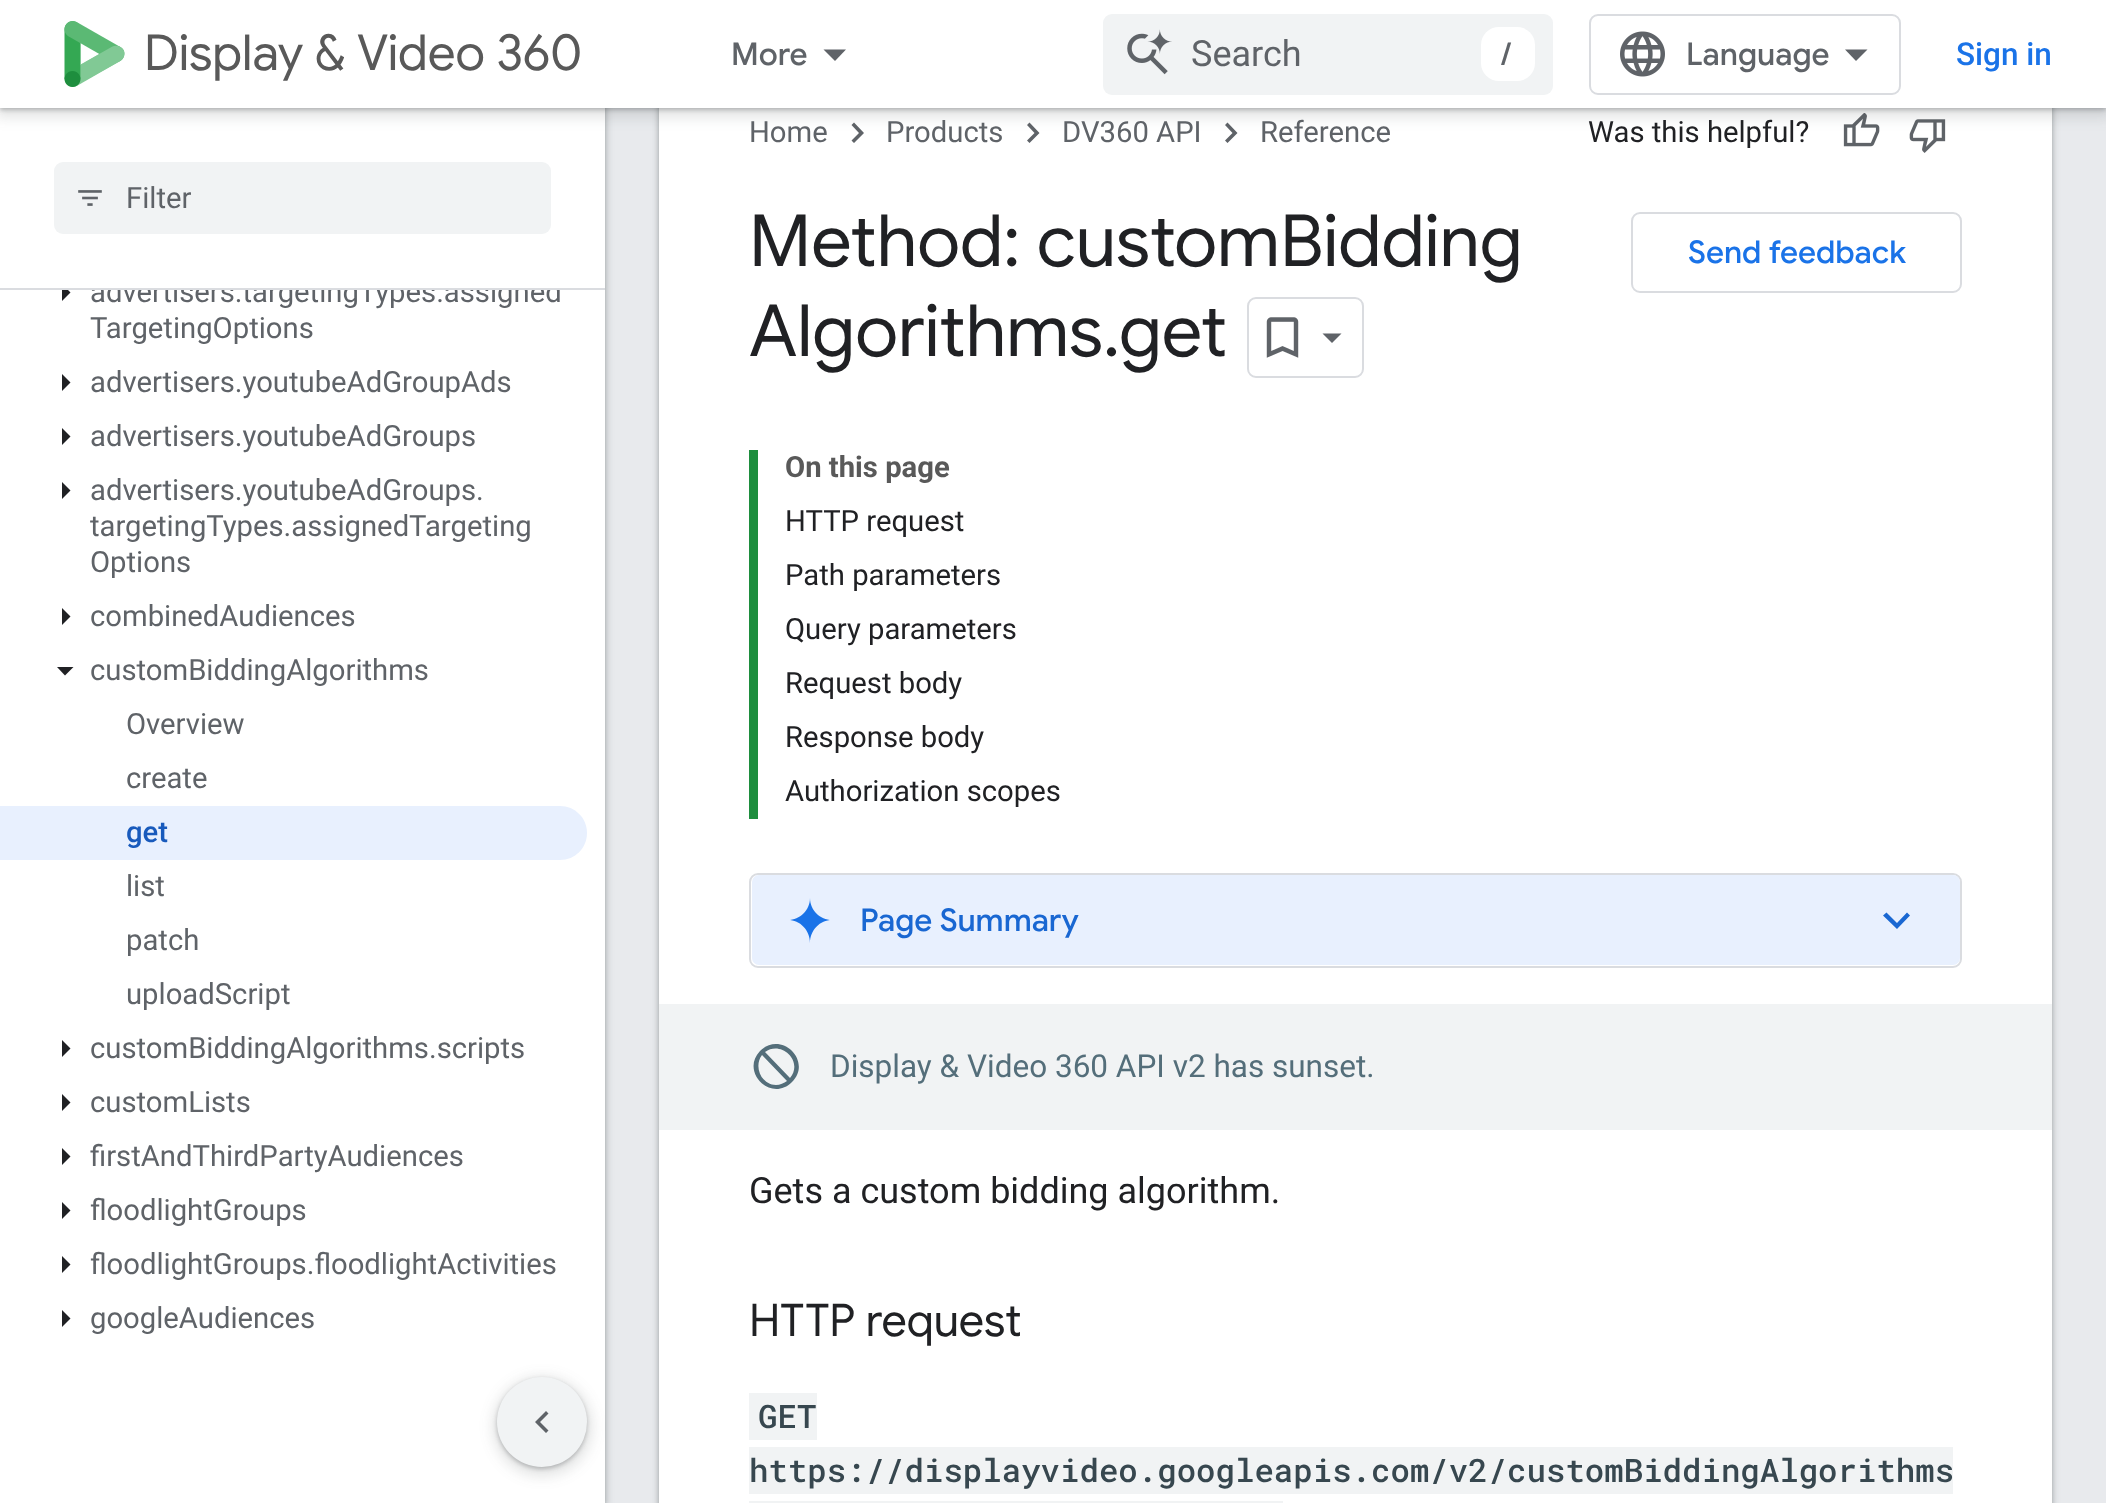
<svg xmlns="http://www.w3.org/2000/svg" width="2106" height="1503">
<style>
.a{font:29.25px Roboto;fill:#5f6368}
.b{font:500 31.5px Google Sans;fill:#5f6368}
.c{font:36px Roboto;fill:#5f6368}
.d{font:500 31.5px Roboto;fill:#1a73e8}
.e{font:49.5px Google Sans;fill:#595959}
.f{font:500 29.25px Roboto;fill:#185abc}
.g{font:29.25px Roboto;fill:#202124}
.h{font:72px Google Sans;fill:#202124}
.i{font:500 31.5px Google Sans;fill:#1a73e8}
.j{font:bold 29.25px Roboto;fill:#595959}
.k{font:500 31.5px Google Sans;fill:#1967d2}
.l{font:31.5px Roboto;fill:#546e7a}
.m{font:36px Roboto;fill:#202124}
.n{font:45px Google Sans;fill:#202124}
.o{font:500 32.4px Roboto Mono;fill:#37474f}
</style>
<rect width="100%" height="100%" fill="#e8eaed"/>
<path fill="#3c404326" filter="blur(3.5px)" d="M-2 0h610v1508H-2z"/>
<path fill="#3c40434d" filter="blur(2px)" d="M0 2h605v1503H0z"/>
<path fill="#fff" d="M0 290h605v1213H0z"/>
<path fill="#202124" d="M62 301v-17l8.5 8.5z"/>
<path fill="#202124" d="M62 391v-17l8.5 8.5z"/>
<path fill="#202124" d="M62 445v-17l8.5 8.5z"/>
<path fill="#202124" d="M62 499v-17l8.5 8.5z"/>
<path fill="#202124" d="M62 625v-17l8.5 8.5z"/>
<path fill="#202124" d="M57 667h16.5l-8.5 8.5z"/>
<path fill="#e8f0fe" d="M0 806h560c15 0 27 12 27 27c0 15-12 27-27 27h-560z"/>
<path fill="#202124" d="M62 1057v-17l8.5 8.5z"/>
<path fill="#202124" d="M62 1111v-17l8.5 8.5z"/>
<path fill="#202124" d="M62 1165v-17l8.5 8.5z"/>
<path fill="#202124" d="M62 1219v-17l8.5 8.5z"/>
<path fill="#202124" d="M62 1273v-17l8.5 8.5z"/>
<path fill="#202124" d="M62 1327v-17l8.5 8.5z"/>
<rect fill="#3c404326" filter="blur(3.5px)" x="657" y="-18" width="1397" height="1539" rx="7"/>
<rect fill="#3c40434d" filter="blur(2px)" x="659" y="-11" width="1393" height="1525" rx="5"/>
<path fill="#fff" d="M659 108h1393v1395H659z"/>
<path fill="#5f6368" d="M854 122.5l10 10.5l-10 10l-2.5-2.5l7.5-7.5l-7.5-8z"/>
<path fill="#5f6368" d="M1029.5 122.5l10 10.5l-10 10l-2.5-2.5l7.5-7.5l-7.5-8z"/>
<path fill="#5f6368" d="M1227.5 122.5l10 10.5l-10 10l-2.5-2.5l7.5-7.5l-7.5-8z"/>
<image href="5.png" x="1843" y="113" width="37" height="34"/>
<image href="6.png" x="1909" y="119" width="37" height="34"/>
<rect fill="none" stroke="#dadce0" stroke-width="2" x="1248" y="298" width="115" height="79" rx="8"/>
<image href="7.png" x="1266" y="317" width="33" height="41"/>
<path fill="#5f6368" d="M1322.5 333.5h19l-9.5 9.5z"/>
<rect fill="none" stroke="#dadce0" stroke-width="2" x="1632" y="213" width="329" height="79" rx="8"/>
<path fill="#1e8e3e" d="M749 450h9v369H749z"/>
<rect fill="none" stroke="#dadce0" stroke-width="2" x="750" y="874" width="1211" height="93" rx="8"/>
<rect fill="#e8f0fe" x="752" y="875" width="1208" height="90" rx="7"/>
<path fill="#1a73e8" d="M810 943c0-13-10-23-22-23c12 0 22-10 22-22c0 12 10 22 22 22c-12 0-22 10-22 23z"/>
<path fill="#1967d2" d="M1907 912.5l3 3l-13 13.5l-14-13.5l3.5-3l10.5 10.5z"/>
<path fill="#f1f3f4" d="M659 1004h1393v126H659z"/>
<path fill="#546e7a" d="M790 1078c14-17-9-38-25-26zm-14 7c4 0 8-2 11-4l-25-26c-9 12 0 30 14 30zm-16-34c21-21 53 10 32 31c-21 21-52-10-32-31z"/>
<path fill="#f1f3f4" d="M749 1393h68v47H749z"/>
<path fill="#f1f3f4" d="M749 1447h1204v47H749z"/>
<path fill="#f1f3f4" d="M749 1501h534v2H749z"/>
<rect fill="#3c404326" filter="blur(7px)" x="493" y="1377" width="99" height="99" rx="49.5"/>
<rect fill="#3c40434d" filter="blur(2px)" x="497" y="1379" width="90" height="90" rx="45"/>
<circle fill="#f1f3f4" cx="542" cy="1422" r="45"/>
<path fill="#5f6368" d="M548.5 1413.5l-8.5 8.5l8.5 8.5l-2.5 2.5l-11-11l11-11z"/>
<text class="a" x="90" y="302">advertisers.targetingTypes.assigned</text>
<path fill="#fff" d="M0 108h605v180H0z"/>
<path fill="#3c40434d" filter="blur(2px)" d="M0 -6h2106v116H0z"/>
<path fill="#3c404326" filter="blur(7px)" d="M-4 -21h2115v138H-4z"/>
<path fill="#fff" d="M0 0h2106v108H0z"/>
<rect fill="#f1f3f4" x="1103" y="14" width="450" height="81" rx="9"/>
<rect fill="#fff" x="1481" y="27" width="54" height="54" rx="18"/>
<text class="b" x="1501" y="65">/</text>
<image href="2.png" x="1127" y="29" width="45" height="46"/>
<text class="c" x="1191" y="66">Search</text>
<path fill="#5f6368" d="M823.5 49.5h22.5l-11 11.5z"/>
<text class="b" x="731" y="65">More</text>
<rect fill="none" stroke="#dadce0" stroke-width="2" x="1590" y="15" width="310" height="79" rx="8"/>
<path fill="#5f6368" d="M1856 61l-11-11.5h22.5z"/>
<text class="b" x="1686" y="65">Language</text>
<image href="3.png" x="1620" y="31" width="45" height="46"/>
<text class="d" x="1956" y="65">Sign in</text>
<text class="e" x="144" y="70">Display &amp; Video 360</text>
<image href="1.png" x="64" y="21" width="61" height="66"/>
<rect fill="#f1f3f4" x="54" y="162" width="497" height="72" rx="9"/>
<image href="4.png" x="78" y="190" width="24" height="16"/>
<text class="a" x="126" y="208">Filter</text>
<path fill="#dadce0" d="M0 288h605v2H0z"/>
<text class="a" x="90" y="338">TargetingOptions</text>
<text class="a" x="90" y="392">advertisers.youtubeAdGroupAds</text>
<text class="a" x="90" y="446">advertisers.youtubeAdGroups</text>
<text class="a" x="90" y="500">advertisers.youtubeAdGroups.</text>
<text class="a" x="90" y="536">targetingTypes.assignedTargeting</text>
<text class="a" x="90" y="572">Options</text>
<text class="a" x="90" y="626">combinedAudiences</text>
<text class="a" x="90" y="680">customBiddingAlgorithms</text>
<text class="a" x="126" y="734">Overview</text>
<text class="a" x="126" y="788">create</text>
<text class="f" x="126" y="842">get</text>
<text class="a" x="126" y="896">list</text>
<text class="a" x="126" y="950">patch</text>
<text class="a" x="126" y="1004">uploadScript</text>
<text class="a" x="90" y="1058">customBiddingAlgorithms.scripts</text>
<text class="a" x="90" y="1112">customLists</text>
<text class="a" x="90" y="1166">firstAndThirdPartyAudiences</text>
<text class="a" x="90" y="1220">floodlightGroups</text>
<text class="a" x="90" y="1274">floodlightGroups.floodlightActivities</text>
<text class="a" x="90" y="1328">googleAudiences</text>
<text class="a" x="749" y="142">Home</text>
<text class="a" x="886" y="142">Products</text>
<text class="a" x="1062" y="142">DV360 API</text>
<text class="a" x="1260" y="142">Reference</text>
<text class="g" x="1588" y="142">Was this helpful?</text>
<text class="h" x="749" y="266">Method: customBidding</text>
<text class="h" x="749" y="356">Algorithms.get</text>
<text class="i" x="1688" y="263">Send feedback</text>
<text class="j" x="785" y="477">On this page</text>
<text class="g" x="785" y="531">HTTP request</text>
<text class="g" x="785" y="585">Path parameters</text>
<text class="g" x="785" y="639">Query parameters</text>
<text class="g" x="785" y="693">Request body</text>
<text class="g" x="785" y="747">Response body</text>
<text class="g" x="785" y="801">Authorization scopes</text>
<text class="k" x="860" y="931">Page Summary</text>
<text class="l" x="830" y="1077">Display &amp; Video 360 API v2 has sunset.</text>
<text class="m" x="749" y="1203">Gets a custom bidding algorithm.</text>
<text class="n" x="749" y="1336">HTTP request</text>
<text class="o" x="758" y="1428">GET</text>
<text class="o" x="749" y="1482">https://displayvideo.googleapis.com/v2/customBiddingAlgorithms</text>
</svg>
